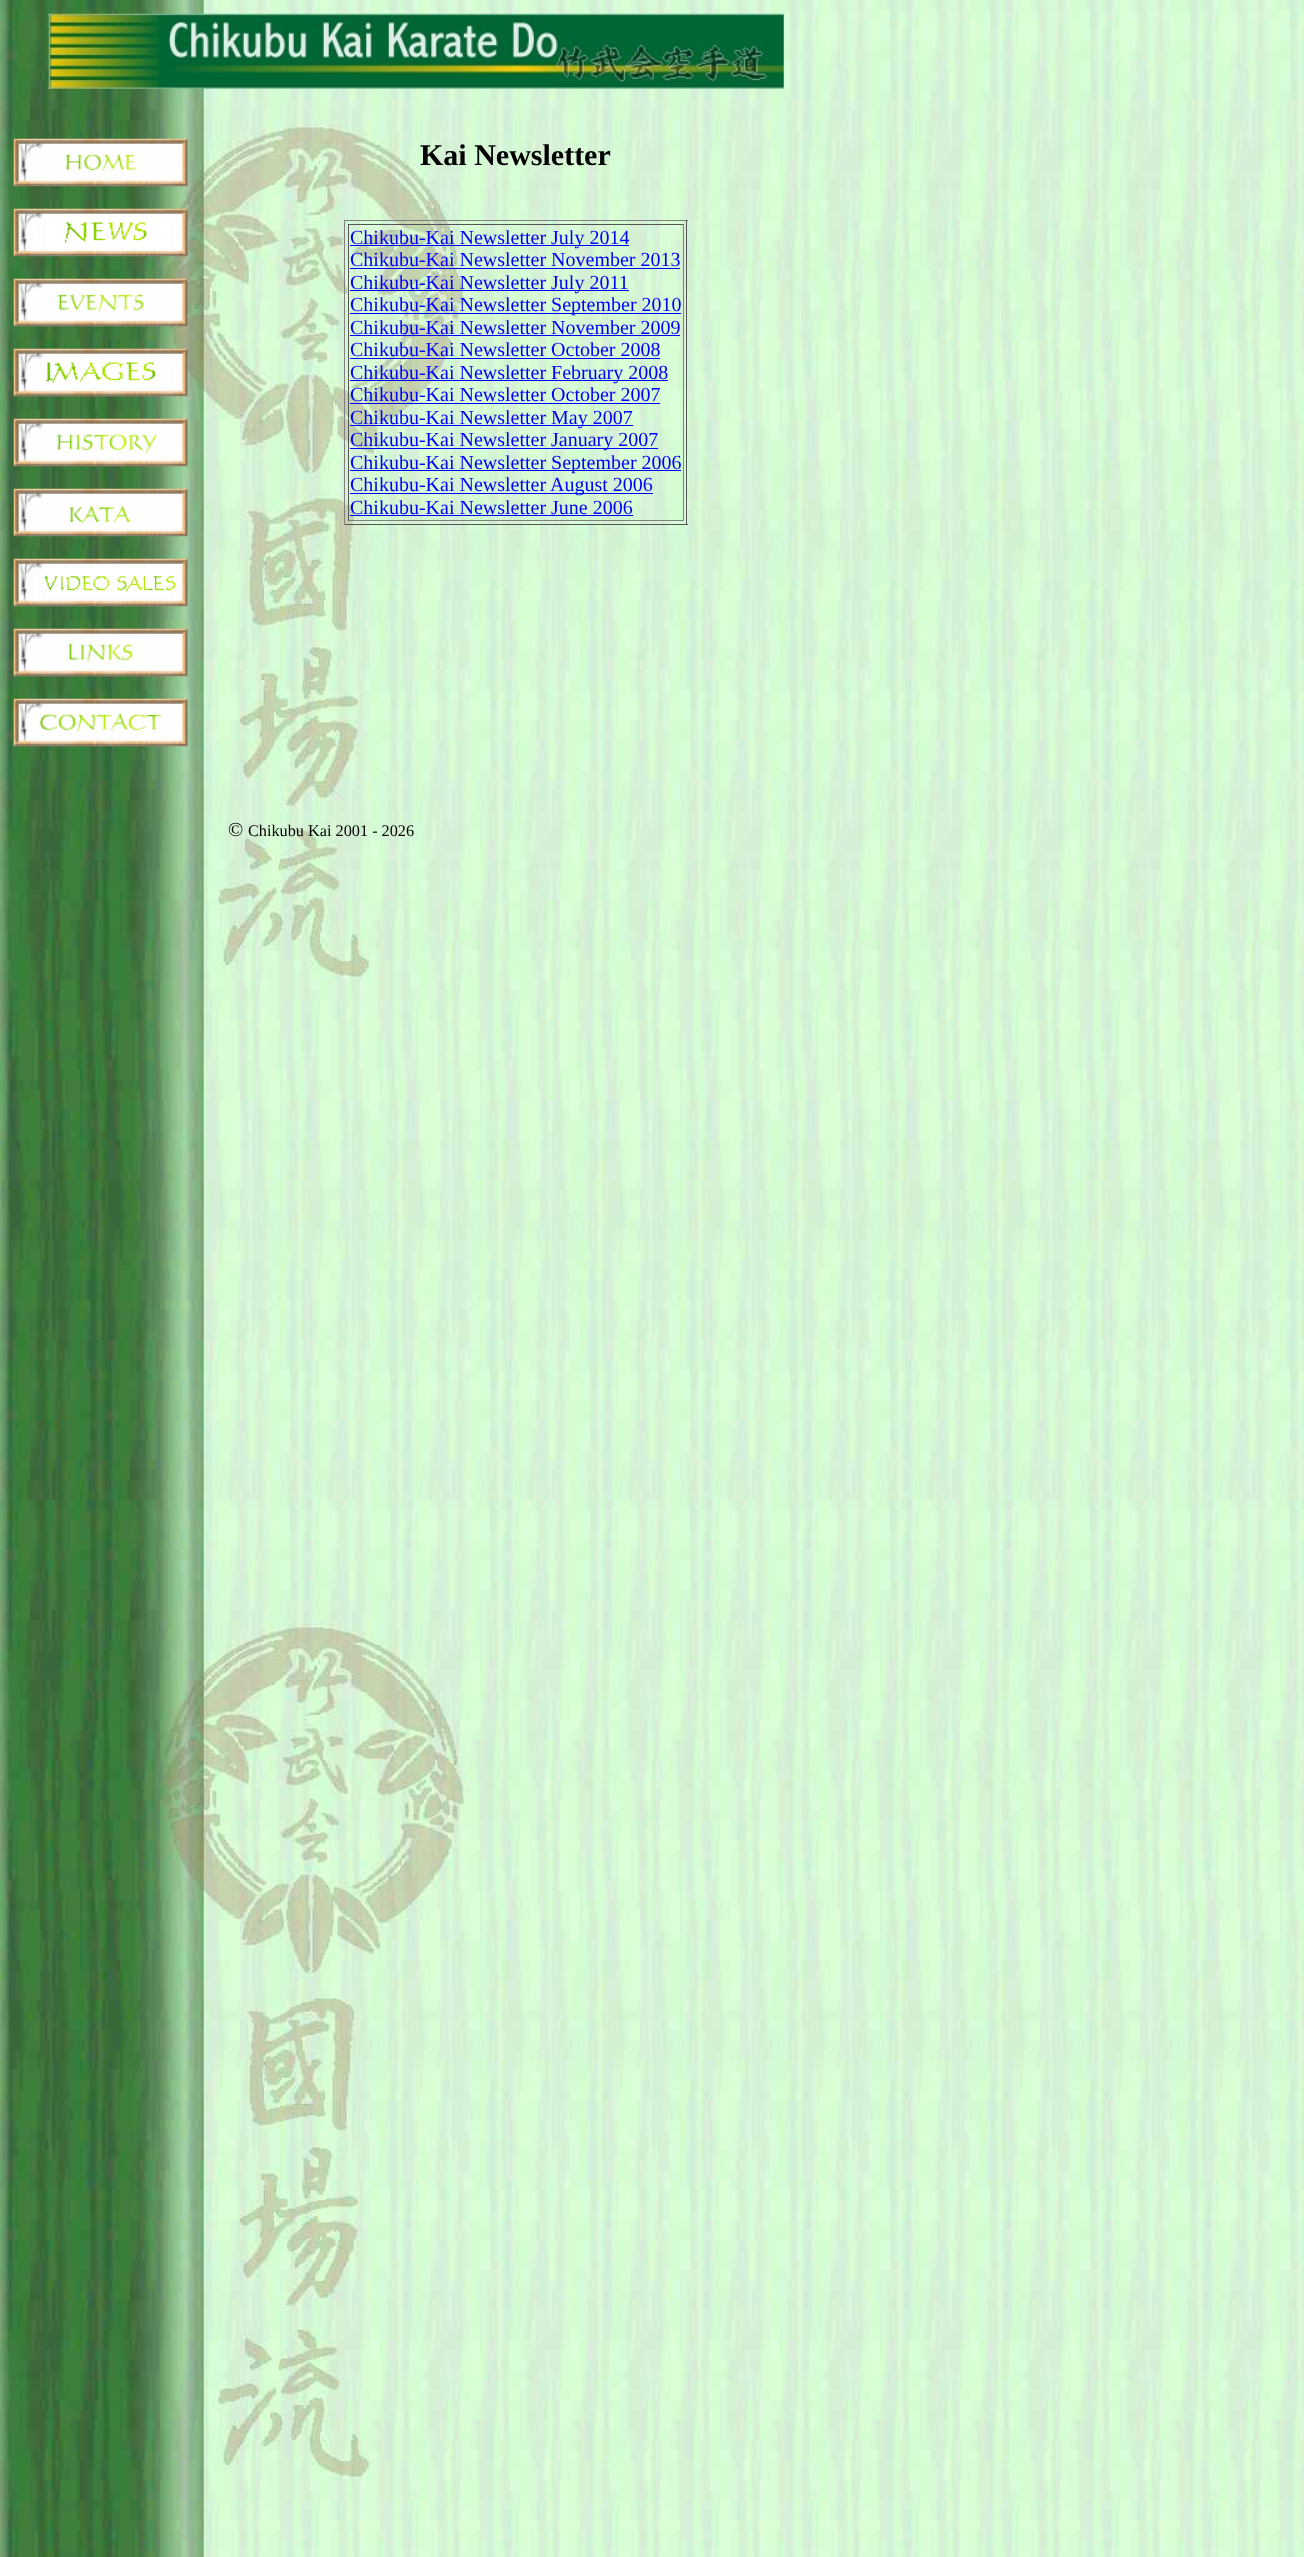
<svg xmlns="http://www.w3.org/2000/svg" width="1304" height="2557">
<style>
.a{font:bold 30px Liberation Serif;fill:#000}
.b{font:20px Liberation Serif;fill:#00f}
.c{font:20px Liberation Serif;fill:#000}
.d{font:16.25px Liberation Serif;fill:#000}
</style>
<rect width="100%" height="100%" fill="#fff"/>
<image href="1.png" x="0" y="0" width="1304" height="2557"/>
<image href="2.png" x="48" y="13" width="736" height="76"/>
<image href="3.png" x="13" y="138" width="175" height="49"/>
<image href="4.png" x="13" y="208" width="175" height="49"/>
<image href="5.png" x="13" y="278" width="175" height="49"/>
<image href="6.png" x="13" y="348" width="175" height="49"/>
<image href="7.png" x="13" y="418" width="175" height="49"/>
<image href="8.png" x="13" y="488" width="175" height="49"/>
<image href="9.png" x="13" y="558" width="175" height="49"/>
<image href="10.png" x="13" y="628" width="175" height="49"/>
<image href="11.png" x="13" y="698" width="175" height="49"/>
<path fill="#808080" d="M344 220h344v1H344z"/>
<path fill="#555" d="M686 220h1v305H686z"/>
<path fill="#555" d="M344 524h344v1H344z"/>
<path fill="#808080" d="M344 220h1v305H344z"/>
<path fill="#555" d="M348 224h336v1H348z"/>
<path fill="#808080" d="M683 224h1v297H683z"/>
<path fill="#808080" d="M348 520h336v1H348z"/>
<path fill="#555" d="M348 224h1v297H348z"/>
<path fill="#00f" d="M350 245h279v1H350z"/>
<path fill="#00f" d="M350 268h330v1H350z"/>
<path fill="#00f" d="M350 290h279v1H350z"/>
<path fill="#00f" d="M350 313h331v1H350z"/>
<path fill="#00f" d="M350 335h330v1H350z"/>
<path fill="#00f" d="M350 358h310v1H350z"/>
<path fill="#00f" d="M350 380h318v1H350z"/>
<path fill="#00f" d="M350 403h310v1H350z"/>
<path fill="#00f" d="M350 425h283v1H350z"/>
<path fill="#00f" d="M350 448h308v1H350z"/>
<path fill="#00f" d="M350 470h331v1H350z"/>
<path fill="#00f" d="M350 493h303v1H350z"/>
<path fill="#00f" d="M350 515h283v1H350z"/>
<text class="a" x="420" y="165">Kai Newsletter</text>
<text class="b" x="350" y="244">Chikubu-Kai Newsletter July 2014</text>
<text class="b" x="350" y="266">Chikubu-Kai Newsletter November 2013</text>
<text class="b" x="350" y="289">Chikubu-Kai Newsletter July 2011</text>
<text class="b" x="350" y="311">Chikubu-Kai Newsletter September 2010</text>
<text class="b" x="350" y="334">Chikubu-Kai Newsletter November 2009</text>
<text class="b" x="350" y="356">Chikubu-Kai Newsletter October 2008</text>
<text class="b" x="350" y="379">Chikubu-Kai Newsletter February 2008</text>
<text class="b" x="350" y="401">Chikubu-Kai Newsletter October 2007</text>
<text class="b" x="350" y="424">Chikubu-Kai Newsletter May 2007</text>
<text class="b" x="350" y="446">Chikubu-Kai Newsletter January 2007</text>
<text class="b" x="350" y="469">Chikubu-Kai Newsletter September 2006</text>
<text class="b" x="350" y="491">Chikubu-Kai Newsletter August 2006</text>
<text class="b" x="350" y="514">Chikubu-Kai Newsletter June 2006</text>
<text class="c" x="228" y="836">©</text>
<text class="d" x="248" y="836">Chikubu Kai 2001 - 2026</text>
</svg>
